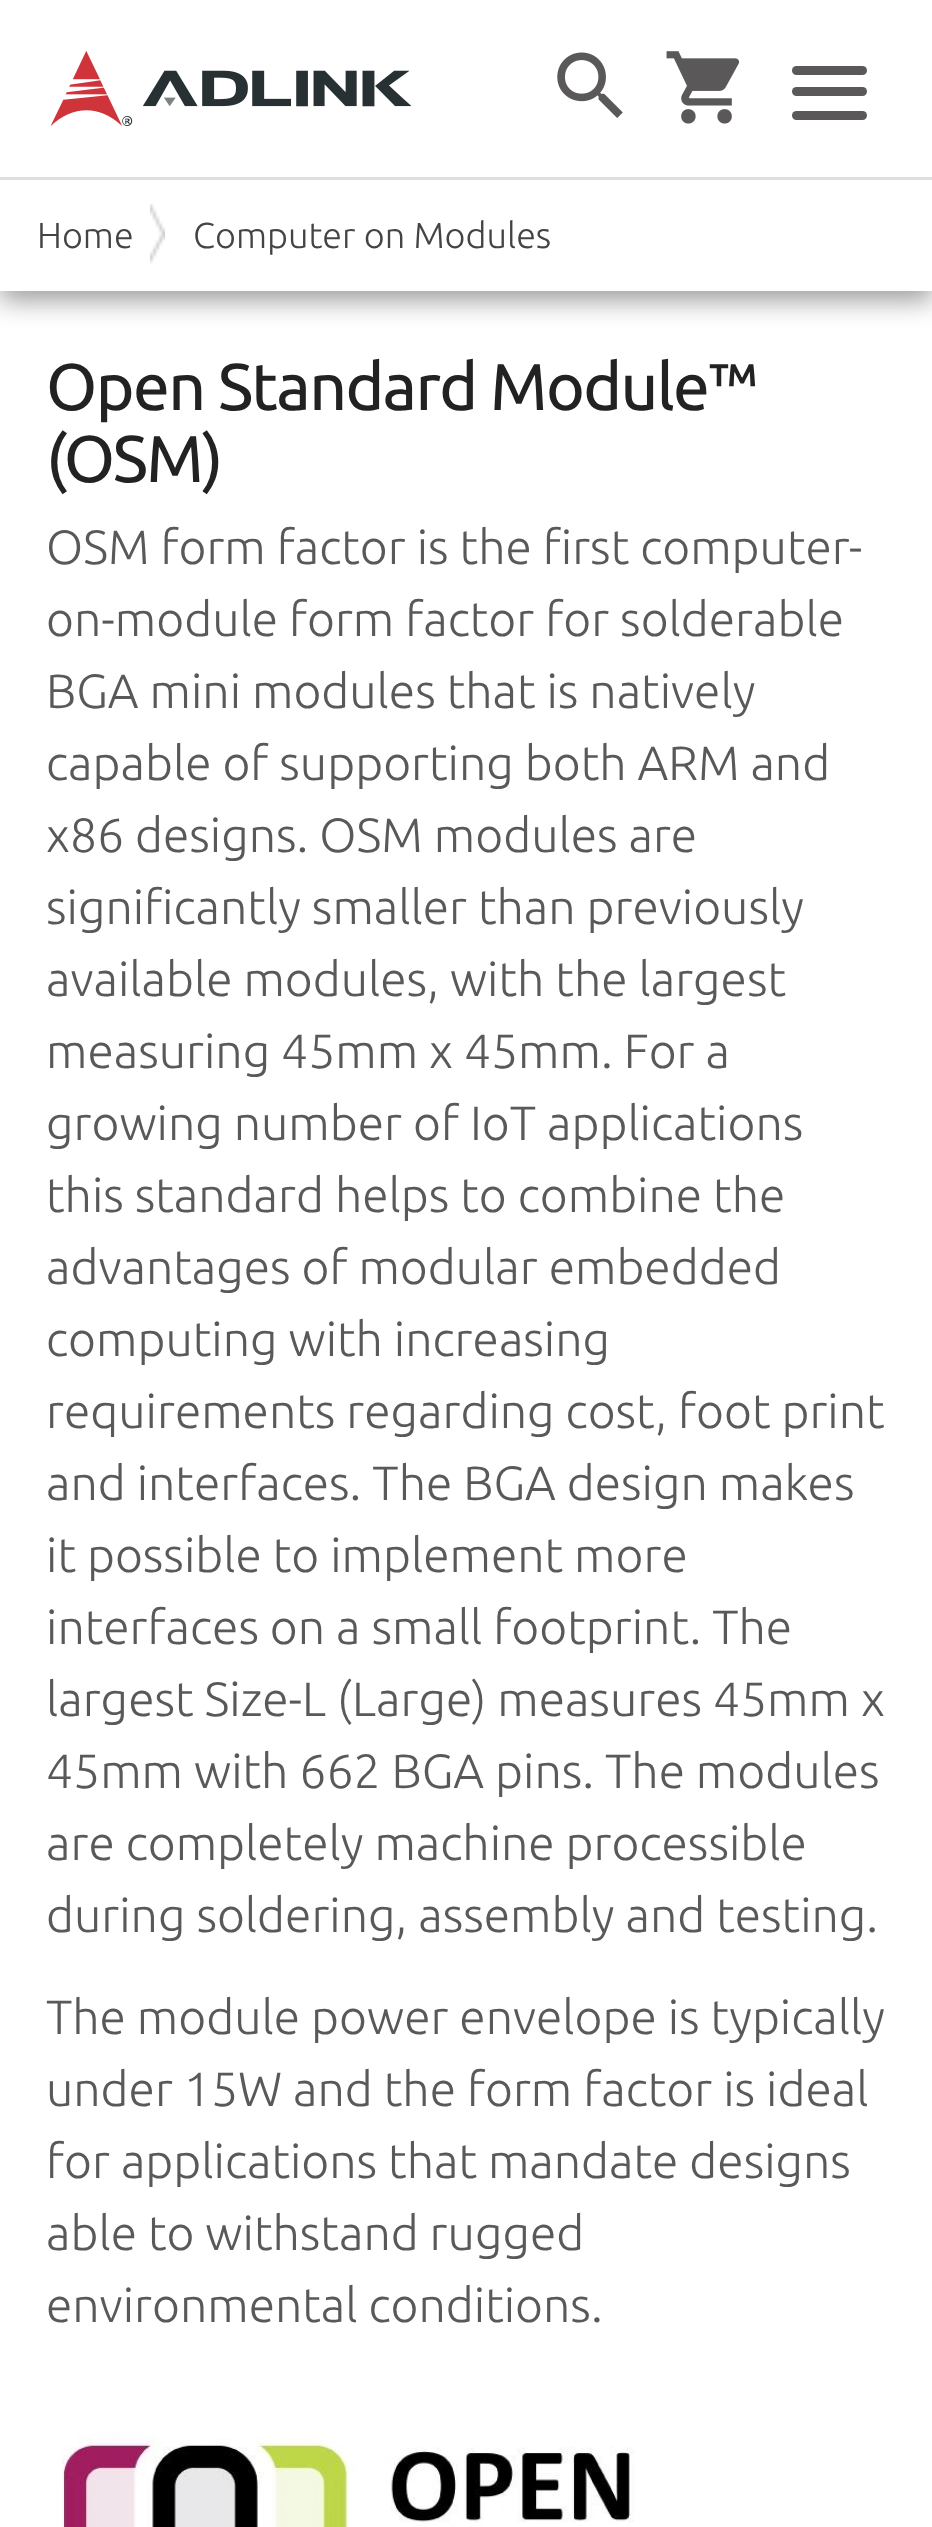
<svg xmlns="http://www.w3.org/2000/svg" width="932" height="2527">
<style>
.a{font:300 36px Ubuntu;fill:#444}
.b{font:66px Ubuntu;letter-spacing:-1.65px;fill:#222}
.c{font:300 48px Ubuntu;fill:#5a5858}
</style>
<defs>
<clipPath id="clip1"><path d="M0 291h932v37H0z"/></clipPath>
</defs>
<rect width="100%" height="100%" fill="#fff"/>
<g clip-path="url(#clip1)">
<path fill="#999" filter="blur(13.5px)" d="M0 9h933v291H0z"/>
</g>
<path fill="#dedede" d="M0 177h932v3H0z"/>
<image href="1.png" x="50" y="51" width="362" height="75"/>
<image href="2.png" x="557" y="52" width="66" height="66"/>
<image href="3.png" x="666" y="51" width="74" height="73"/>
<rect fill="#5a5858" x="792" y="66" width="75" height="9" rx="4.5"/>
<rect fill="#5a5858" x="792" y="87" width="75" height="9" rx="4.5"/>
<rect fill="#5a5858" x="792" y="111" width="75" height="9" rx="4.5"/>
<image href="4.png" x="150" y="204" width="15" height="60"/>
<image href="5.png" x="61" y="2433" width="574" height="94"/>
<text class="a" x="37" y="248">Home</text>
<text class="a" x="193" y="248">Computer on Modules</text>
<text class="b" x="46" y="410">Open Standard Module™</text>
<text class="b" x="46" y="482">(OSM)</text>
<text class="c" x="46" y="564">OSM form factor is the first computer-</text>
<text class="c" x="46" y="636">on-module form factor for solderable</text>
<text class="c" x="46" y="708">BGA mini modules that is natively</text>
<text class="c" x="46" y="780">capable of supporting both ARM and</text>
<text class="c" x="46" y="852">x86 designs. OSM modules are</text>
<text class="c" x="46" y="924">significantly smaller than previously</text>
<text class="c" x="46" y="996">available modules, with the largest</text>
<text class="c" x="46" y="1068">measuring 45mm x 45mm. For a</text>
<text class="c" x="46" y="1140">growing number of IoT applications</text>
<text class="c" x="46" y="1212">this standard helps to combine the</text>
<text class="c" x="46" y="1284">advantages of modular embedded</text>
<text class="c" x="46" y="1356">computing with increasing</text>
<text class="c" x="46" y="1428">requirements regarding cost, foot print</text>
<text class="c" x="46" y="1500">and interfaces. The BGA design makes</text>
<text class="c" x="46" y="1572">it possible to implement more</text>
<text class="c" x="46" y="1644">interfaces on a small footprint. The</text>
<text class="c" x="46" y="1716">largest Size-L (Large) measures 45mm x</text>
<text class="c" x="46" y="1788">45mm with 662 BGA pins. The modules</text>
<text class="c" x="46" y="1860">are completely machine processible</text>
<text class="c" x="46" y="1932">during soldering, assembly and testing.</text>
<text class="c" x="46" y="2034">The module power envelope is typically</text>
<text class="c" x="46" y="2106">under 15W and the form factor is ideal</text>
<text class="c" x="46" y="2178">for applications that mandate designs</text>
<text class="c" x="46" y="2250">able to withstand rugged</text>
<text class="c" x="46" y="2322">environmental conditions.</text>
</svg>
